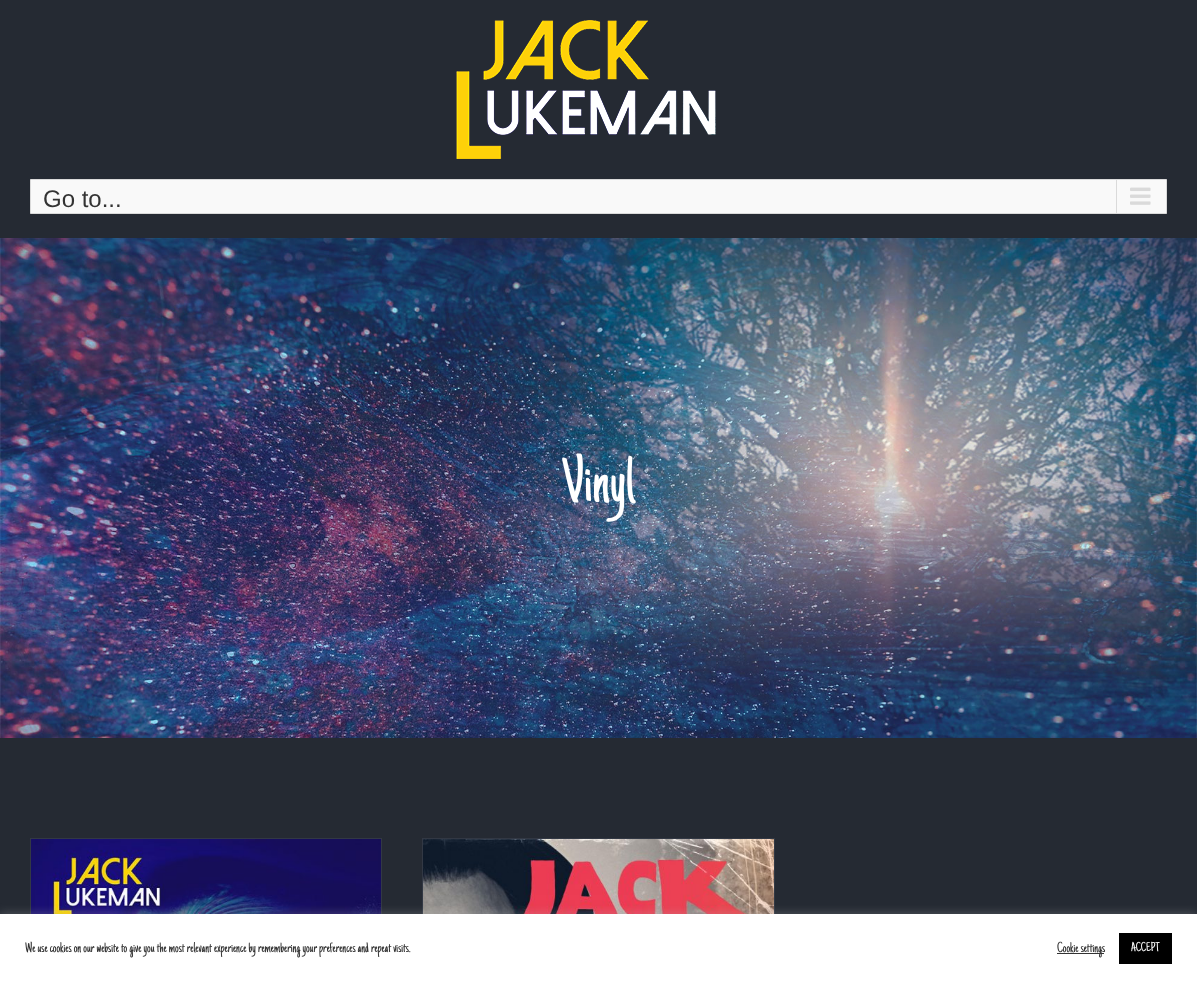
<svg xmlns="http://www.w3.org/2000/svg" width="1197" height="983">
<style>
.a{font:24px Liberation Sans;fill:#333}
.b{font:66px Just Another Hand;fill:#fff}
.c{font:14.7px Just Another Hand;fill:#333}
.d{font:13px Just Another Hand;fill:#fff}
</style>
<rect width="100%" height="100%" fill="#252a33"/>
<image href="1.png" x="456" y="20" width="260" height="139"/>
<path fill="#f9f9f9" stroke="#dadada" d="M30.5 179.5h1136v34H30.5z"/>
<path fill="#dadada" d="M1116 180h1v33H1116z"/>
<image href="2.png" x="1130" y="187" width="21" height="18"/>
<image href="3.png" x="0" y="238" width="1197" height="500"/>
<path fill="#323844" d="M30 838h352v1H30z"/>
<path fill="#323844" d="M381 838h1v76H381z"/>
<path fill="#323844" d="M30 838h1v76H30z"/>
<image href="4.png" x="31" y="839" width="350" height="75"/>
<path fill="#323844" d="M422 838h353v1H422z"/>
<path fill="#323844" d="M774 838h1v76H774z"/>
<path fill="#323844" d="M422 838h1v76H422z"/>
<image href="5.png" x="423" y="839" width="351" height="75"/>
<path fill="#acabab4d" filter="blur(5px)" d="M0 913h1197v69H0z"/>
<path fill="#fff" d="M0 914h1197v69H0z"/>
<path fill="#333" d="M1057 953h47v1H1057z"/>
<path fill="#000" d="M1119 933h53v31H1119z"/>
<text class="a" x="43" y="207">Go to...</text>
<text class="b" x="562" y="501">Vinyl</text>
<text class="c" x="25" y="952">We use cookies on our website to give you the most relevant experience by remembering your preferences and repeat visits.</text>
<text class="c" x="1057" y="952">Cookie settings</text>
<text class="d" x="1131" y="951">ACCEPT</text>
</svg>
